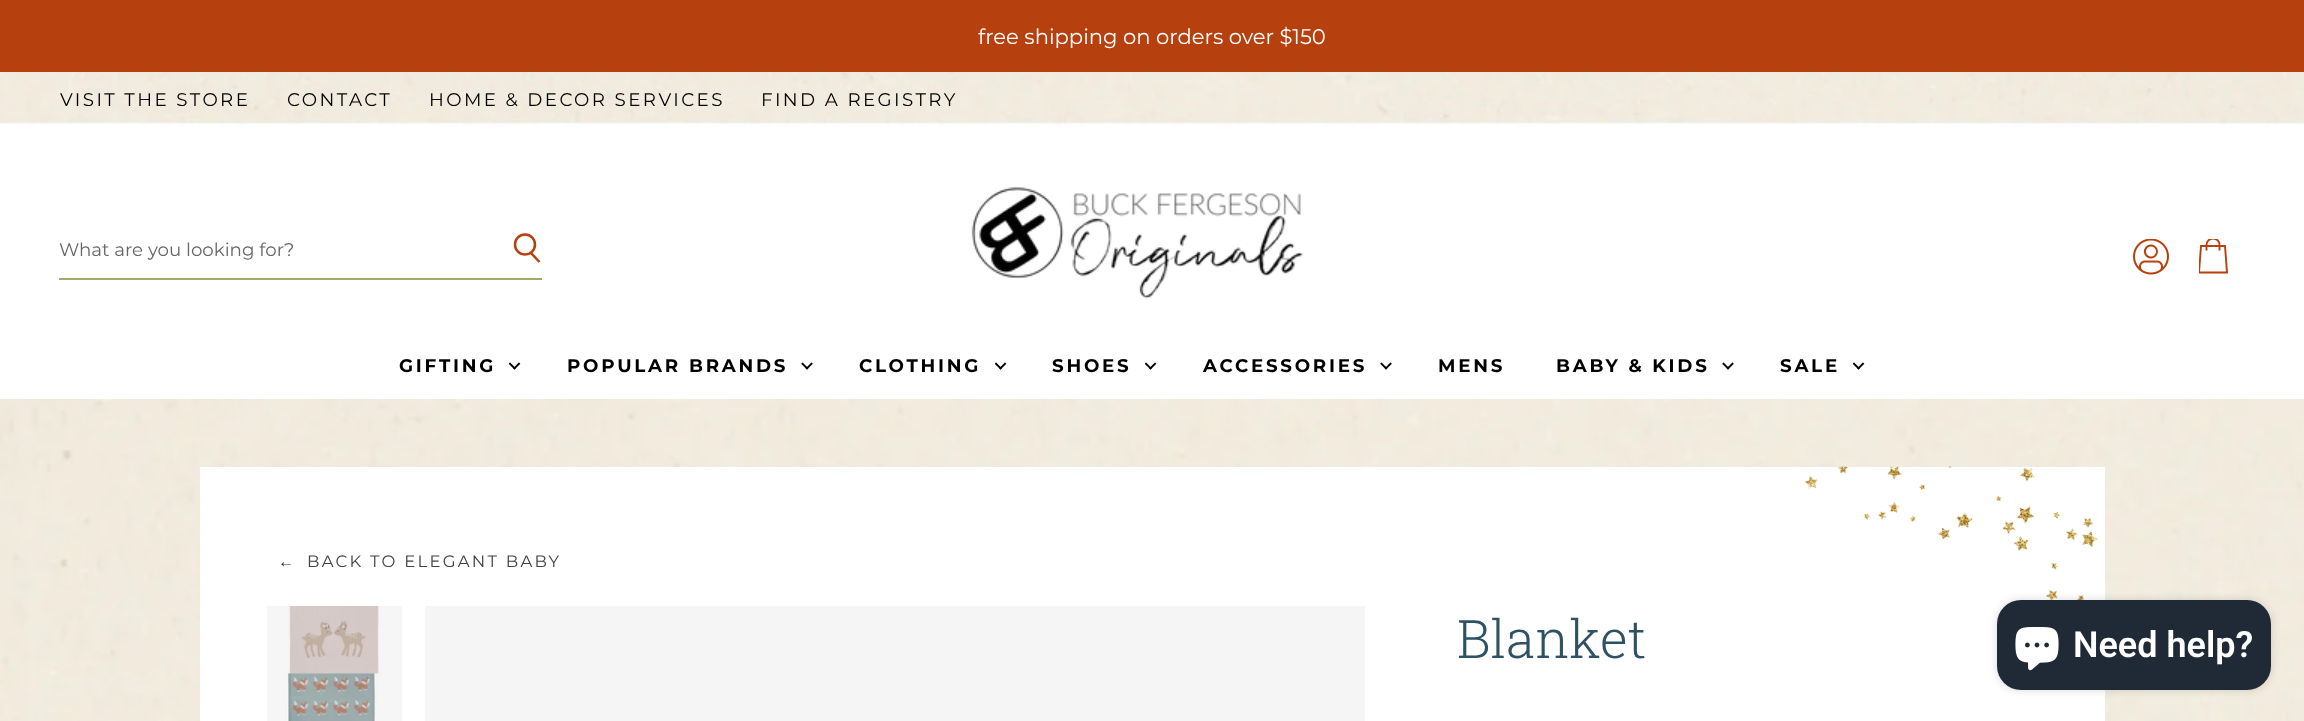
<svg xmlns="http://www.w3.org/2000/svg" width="2304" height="721">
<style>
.a{font:100 21.1px Montserrat;fill:#fff}
.b{font:100 18.25px Montserrat;letter-spacing:2.4px;fill:#000}
.c{font:100 18.25px Montserrat;fill:#666}
.d{font:bold 18.25px Montserrat;letter-spacing:2.75px;fill:#000}
.e{font:16.5px Liberation Sans;letter-spacing:2.25px;fill:#333}
.f{font:100 16.5px Montserrat;letter-spacing:2.25px;fill:#404040}
.g{font:300 53px Roboto Slab;fill:#2e5164}
.h{font:600 36px Roboto;fill:#fff}
</style>
<defs>
<clipPath id="clip1"><path d="M2199 239h30v36H2199z"/></clipPath>
</defs>
<rect width="100%" height="100%" fill="#fff"/>
<path fill="#b7410e" d="M0 0h2304v72H0z"/>
<image href="1.png" x="0" y="72" width="2304" height="55"/>
<path fill="#9dad69" d="M59 278h483v2H59z"/>
<path fill="none" stroke="#b7410e" stroke-width="2.5" d="M539.5 262l-8.5-9"/>
<circle fill="none" stroke="#b7410e" stroke-width="2.5" cx="525" cy="244.5" r="10"/>
<image href="2.png" x="971" y="187" width="332" height="112"/>
<image href="3.png" x="2133" y="239" width="36" height="36"/>
<g clip-path="url(#clip1)">
<path fill="none" stroke="#b7410e" stroke-width="1.9" d="M2227 272.5h-28l2-26.5h24zm-7.5-22v-5.5c0-3.5-2.5-6.5-6.5-6.5c-3.5 0-6.5 3-6.5 6.5v5.5"/>
</g>
<image href="4.png" x="509" y="362" width="12" height="8"/>
<image href="5.png" x="801" y="362" width="12" height="8"/>
<image href="4.png" x="995" y="362" width="12" height="8"/>
<image href="4.png" x="1145" y="362" width="12" height="8"/>
<image href="5.png" x="1380" y="362" width="12" height="8"/>
<image href="5.png" x="1722" y="362" width="12" height="8"/>
<image href="4.png" x="1853" y="362" width="12" height="8"/>
<image href="6.png" x="0" y="399" width="2304" height="322"/>
<path fill="#fff" d="M200 467h1905v254H200z"/>
<image href="7.png" x="1777" y="466" width="328" height="134"/>
<image href="8.png" x="267" y="606" width="135" height="115"/>
<path fill="#f5f5f5" d="M425 606h940v115H425z"/>
<rect fill="#00000026" filter="blur(4px)" x="1997" y="600" width="274" height="90" rx="24"/>
<rect fill="#202a36" x="1997" y="600" width="274" height="90" rx="24"/>
<image href="9.png" x="2015" y="627" width="44" height="44"/>
<text class="a" x="978" y="44">free shipping on orders over $150</text>
<text class="b" x="60" y="106">VISIT THE STORE</text>
<text class="b" x="287" y="106">CONTACT</text>
<text class="b" x="429" y="106">HOME &amp; DECOR SERVICES</text>
<text class="b" x="761" y="106">FIND A REGISTRY</text>
<text class="c" x="59" y="256">What are you looking for?</text>
<text class="d" x="399" y="372">GIFTING</text>
<text class="d" x="567" y="372">POPULAR BRANDS</text>
<text class="d" x="859" y="372">CLOTHING</text>
<text class="d" x="1052" y="372">SHOES</text>
<text class="d" x="1203" y="372">ACCESSORIES</text>
<text class="d" x="1438" y="372">MENS</text>
<text class="d" x="1556" y="372">BABY &amp; KIDS</text>
<text class="d" x="1780" y="372">SALE</text>
<text class="e" x="278" y="567">←</text>
<text class="f" x="307" y="567">BACK TO ELEGANT BABY</text>
<text class="g" x="1457" y="658">Blanket</text>
<text class="h" x="2073" y="657">Need help?</text>
</svg>
